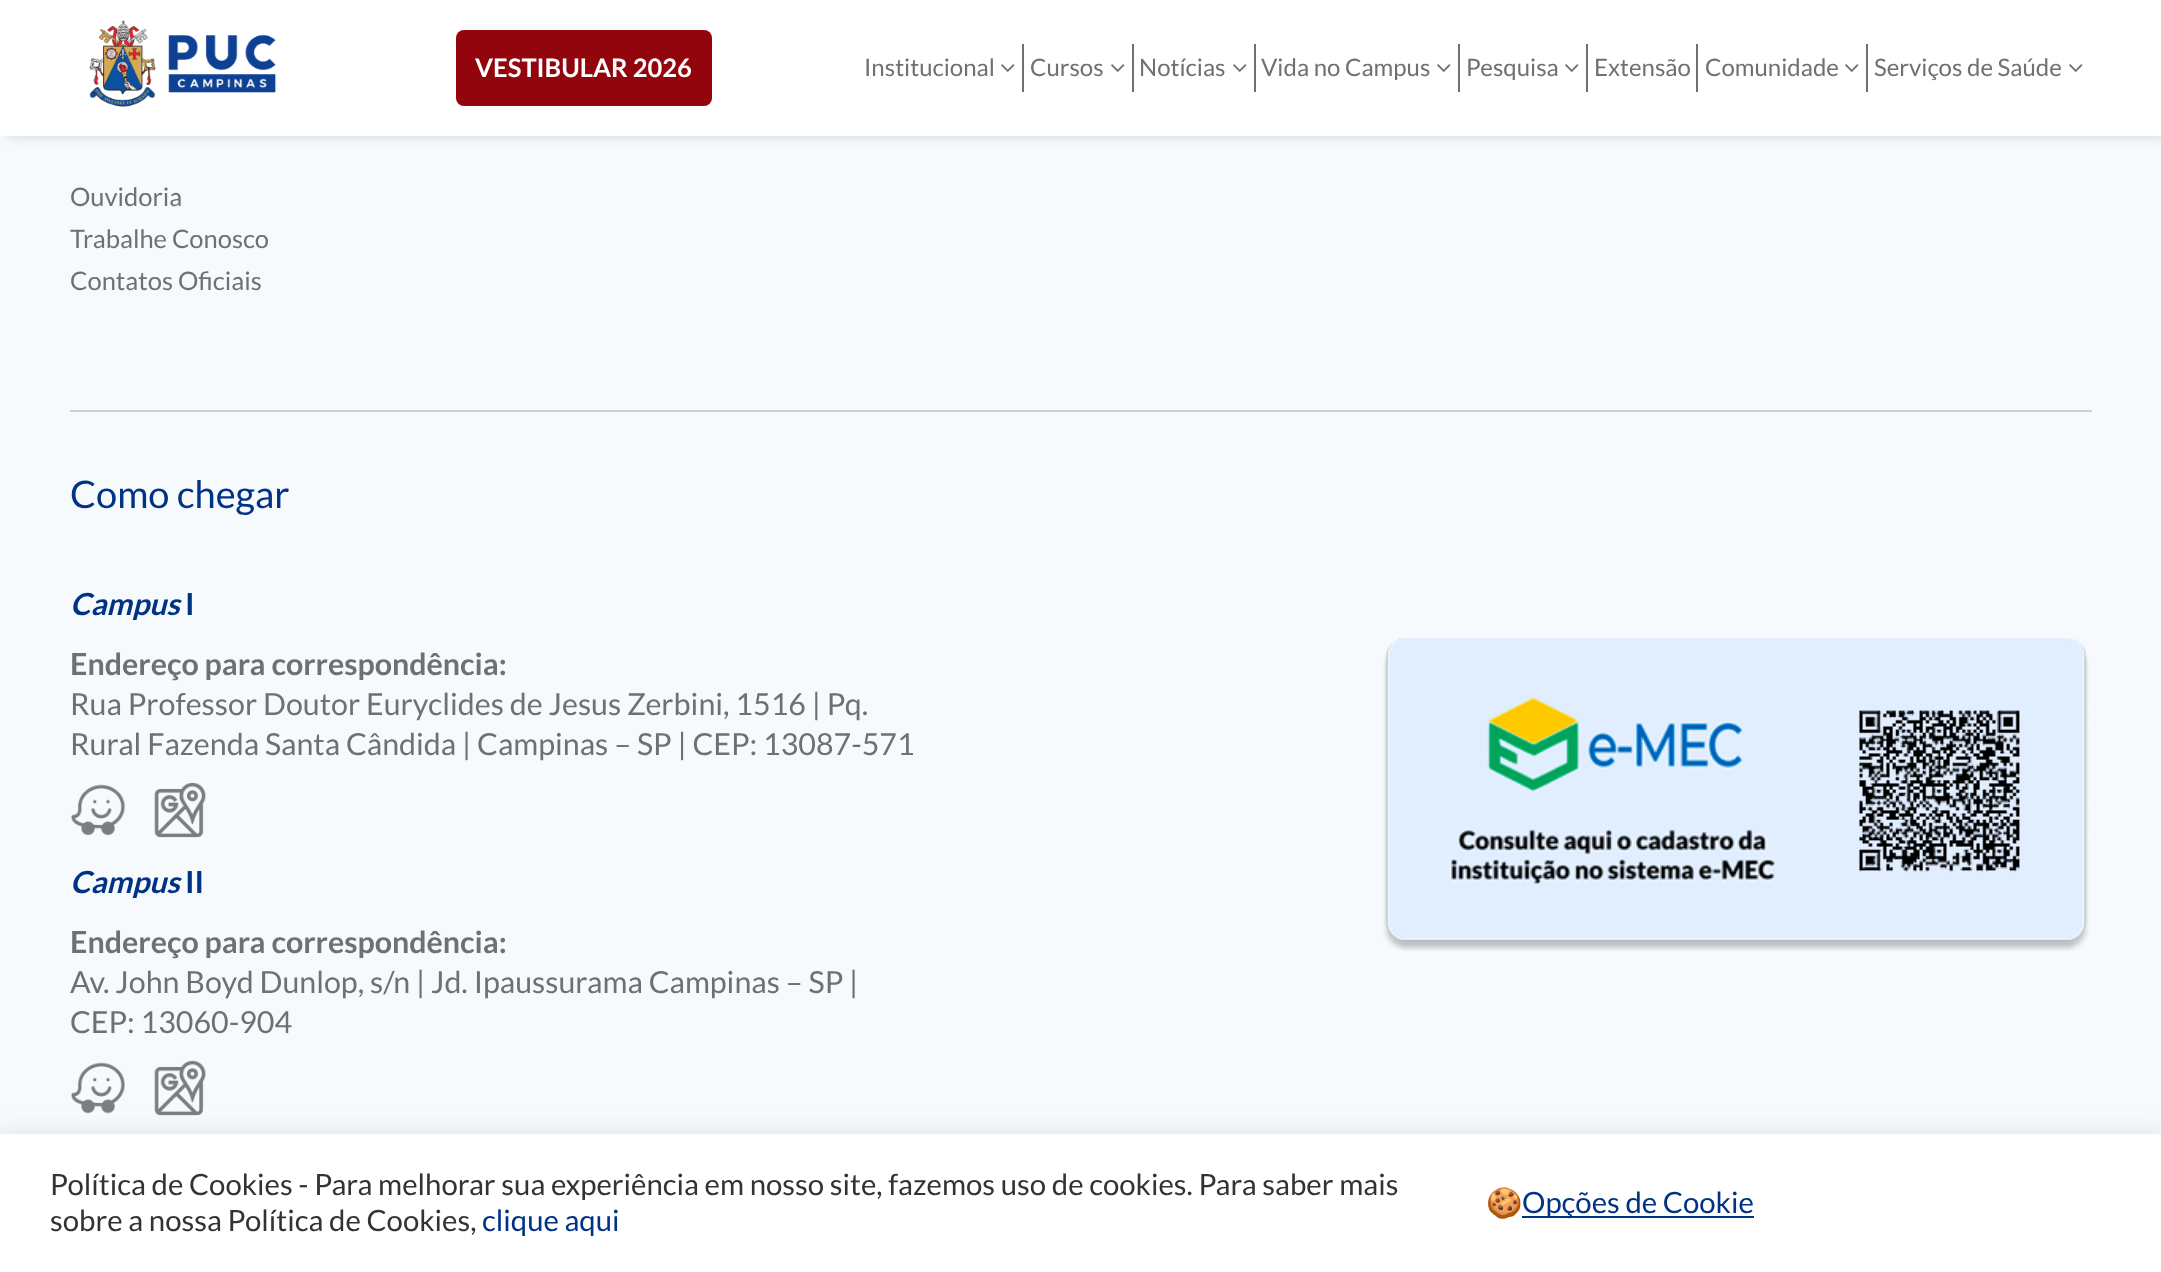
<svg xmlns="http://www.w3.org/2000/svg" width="2161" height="1272">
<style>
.a{font:bold 25.5px Lato;fill:#fff}
.b{font:24px Lato;fill:#707070}
.c{font:25.5px Lato;fill:#707070}
.d{font:38px Lato;fill:#003383}
.e{font:italic bold 30.4px Lato;fill:#003383}
.f{font:bold 30.4px Lato;fill:#003383}
.g{font:bold 30.4px Lato;fill:#707070}
.h{font:30.4px Lato;fill:#707070}
.i{font:29.35px Lato;fill:#333}
.j{font:29.35px Lato;fill:#003383}
.k{font:29.35px Noto Color Emoji;fill:#333}
</style>
<rect width="100%" height="100%" fill="#f7fafd"/>
<path fill="#00000026" filter="blur(6px)" d="M6 0h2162v136H6z"/>
<path fill="#fff" d="M0 0h2161v136H0z"/>
<image href="1.png" x="89" y="20" width="188" height="87"/>
<rect fill="#93050d" x="456" y="30" width="256" height="76" rx="8"/>
<path fill="#707070" d="M1022 44h2v48H1022z"/>
<image href="2.png" x="1001" y="64" width="14" height="8"/>
<path fill="#707070" d="M1132 44h2v48H1132z"/>
<image href="2.png" x="1111" y="64" width="14" height="8"/>
<path fill="#707070" d="M1254 44h2v48H1254z"/>
<image href="2.png" x="1233" y="64" width="14" height="8"/>
<path fill="#707070" d="M1458 44h2v48H1458z"/>
<image href="2.png" x="1437" y="64" width="14" height="8"/>
<path fill="#707070" d="M1586 44h2v48H1586z"/>
<image href="2.png" x="1565" y="64" width="14" height="8"/>
<path fill="#707070" d="M1696 44h2v48H1696z"/>
<path fill="#707070" d="M1866 44h2v48H1866z"/>
<image href="2.png" x="1845" y="64" width="14" height="8"/>
<image href="2.png" x="2069" y="64" width="14" height="8"/>
<path fill="#d2d1d1" d="M70 410h2022v2H70z"/>
<image href="3.png" x="71" y="784" width="54" height="52"/>
<image href="4.png" x="154" y="782" width="52" height="56"/>
<image href="3.png" x="71" y="1062" width="54" height="52"/>
<image href="4.png" x="154" y="1060" width="52" height="56"/>
<image href="5.png" x="1383" y="638" width="706" height="313"/>
<path fill="#acabab4d" filter="blur(10px)" d="M0 1132h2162v138H0z"/>
<path fill="#fff" d="M0 1134h2161v138H0z"/>
<path fill="#003383" d="M1522 1216h232v2H1522z"/>
<text class="a" x="475" y="77">VESTIBULAR 2026</text>
<text class="b" x="864" y="76">Institucional</text>
<text class="b" x="1030" y="76">Cursos</text>
<text class="b" x="1139" y="76">Notícias</text>
<text class="b" x="1261" y="76">Vida no Campus</text>
<text class="b" x="1466" y="76">Pesquisa</text>
<text class="b" x="1594" y="76">Extensão</text>
<text class="b" x="1705" y="76">Comunidade</text>
<text class="b" x="1874" y="76">Serviços de Saúde</text>
<text class="c" x="70" y="206">Ouvidoria</text>
<text class="c" x="70" y="248">Trabalhe Conosco</text>
<text class="c" x="70" y="290">Contatos Oficiais</text>
<text class="d" x="70" y="508">Como chegar</text>
<text class="e" x="70" y="615">Campus</text>
<text class="f" x="185" y="615">I</text>
<text class="g" x="70" y="675">Endereço para correspondência:</text>
<text class="h" x="70" y="715">Rua Professor Doutor Euryclides de Jesus Zerbini, 1516 | Pq.</text>
<text class="h" x="70" y="755">Rural Fazenda Santa Cândida | Campinas – SP | CEP: 13087-571</text>
<text class="e" x="70" y="893">Campus</text>
<text class="f" x="185" y="893">II</text>
<text class="g" x="70" y="953">Endereço para correspondência:</text>
<text class="h" x="70" y="993">Av. John Boyd Dunlop, s/n | Jd. Ipaussurama Campinas – SP |</text>
<text class="h" x="70" y="1033">CEP: 13060-904</text>
<text class="i" x="50" y="1195">Política de Cookies - Para melhorar sua experiência em nosso site, fazemos uso de cookies. Para saber mais</text>
<text class="i" x="50" y="1231">sobre a nossa Política de Cookies,</text>
<text class="j" x="482" y="1231">clique aqui</text>
<text class="k" x="1486" y="1213">🍪</text>
<text class="j" x="1522" y="1213">Opções de Cookie</text>
</svg>
